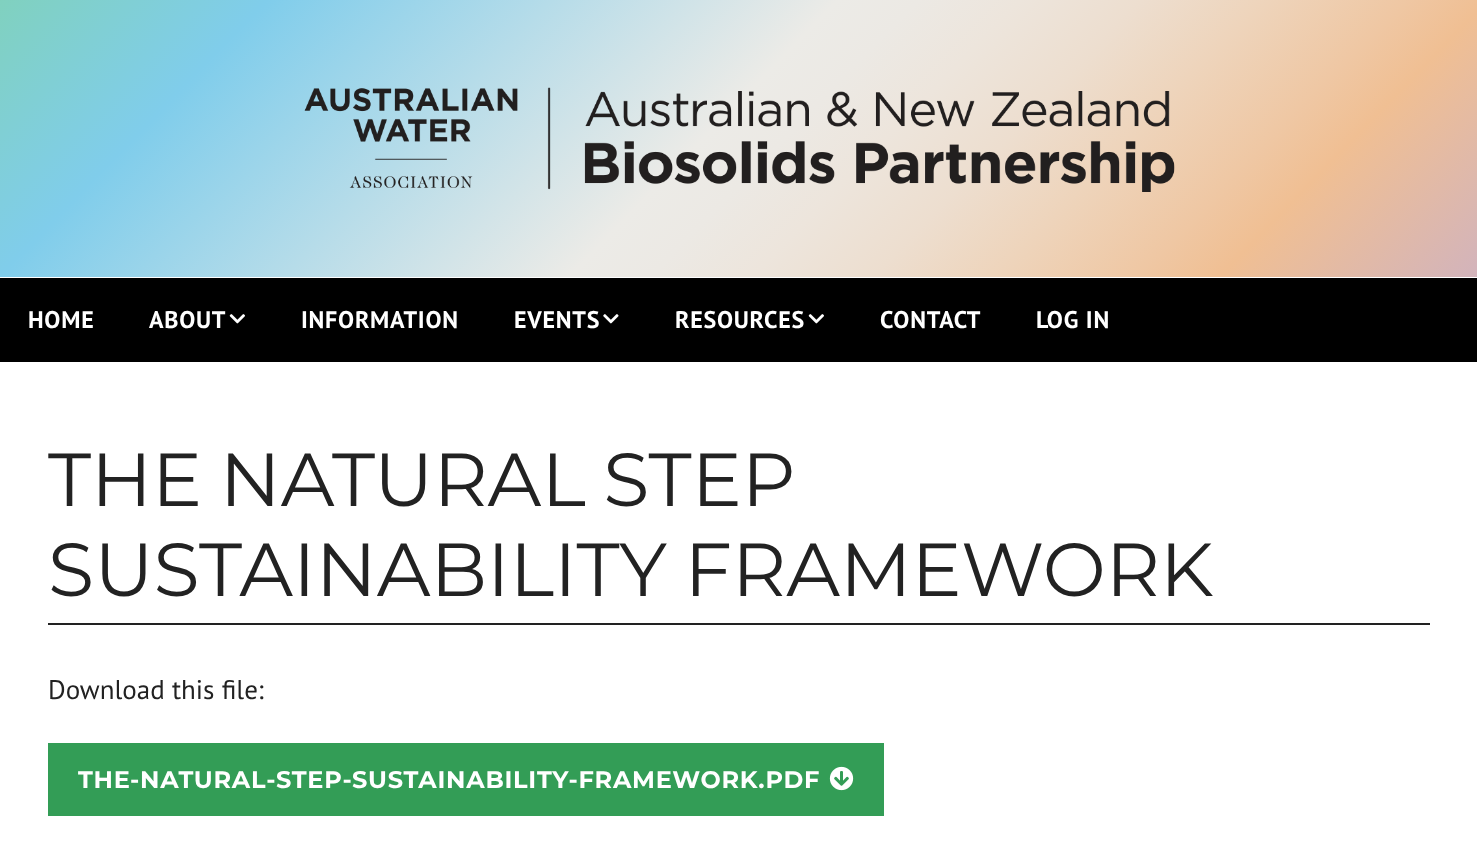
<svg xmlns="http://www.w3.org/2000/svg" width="1477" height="864">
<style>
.a{font:bold 24px PT Sans;letter-spacing:0.75px;fill:#fff}
.b{font:75px Montserrat;fill:#222}
.c{font:27px PT Sans;fill:#222}
.d{font:bold 24px Montserrat;letter-spacing:0.75px;fill:#fff}
</style>
<defs>
<linearGradient id="g1" gradientUnits="userSpaceOnUse" x1="218" y1="-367" x2="1265" y2="649"><stop offset="0" stop-color="#80d3a8"/><stop offset="0.2" stop-color="#80cdeb"/><stop offset="0.48" stop-color="#ecebe7"/><stop offset="0.52" stop-color="#ece9e4"/><stop offset="0.57" stop-color="#ede5dc"/><stop offset="0.63" stop-color="#eddecf"/><stop offset="0.69" stop-color="#eed4bb"/><stop offset="0.76" stop-color="#efc7a3"/><stop offset="0.8" stop-color="#f0bf93"/><stop offset="1" stop-color="#c1add3"/></linearGradient>
</defs>
<rect width="100%" height="100%" fill="#fff"/>
<path fill="url(#g1)" d="M0 0h1477v277H0z"/>
<image href="1.png" x="304" y="87" width="871" height="105"/>
<path fill="#000" d="M0 278h1477v84H0z"/>
<image href="2.png" x="229" y="314" width="16" height="10"/>
<image href="3.png" x="603" y="314" width="16" height="10"/>
<image href="2.png" x="808" y="314" width="16" height="10"/>
<path fill="#222" d="M48 623h1382v2H48z"/>
<path fill="#339d56" d="M48 743h836v73H48z"/>
<image href="4.png" x="829" y="766" width="25" height="25"/>
<text class="a" x="28" y="328">HOME</text>
<text class="a" x="149" y="328">ABOUT</text>
<text class="a" x="301" y="328">INFORMATION</text>
<text class="a" x="514" y="328">EVENTS</text>
<text class="a" x="675" y="328">RESOURCES</text>
<text class="a" x="880" y="328">CONTACT</text>
<text class="a" x="1036" y="328">LOG IN</text>
<text class="b" x="48" y="506" word-spacing="-2">THE NATURAL STEP</text>
<text class="b" x="48" y="596" word-spacing="-2">SUSTAINABILITY FRAMEWORK</text>
<text class="c" x="48" y="699">Download this file:</text>
<text class="d" x="78" y="788">THE-NATURAL-STEP-SUSTAINABILITY-FRAMEWORK.PDF</text>
</svg>
